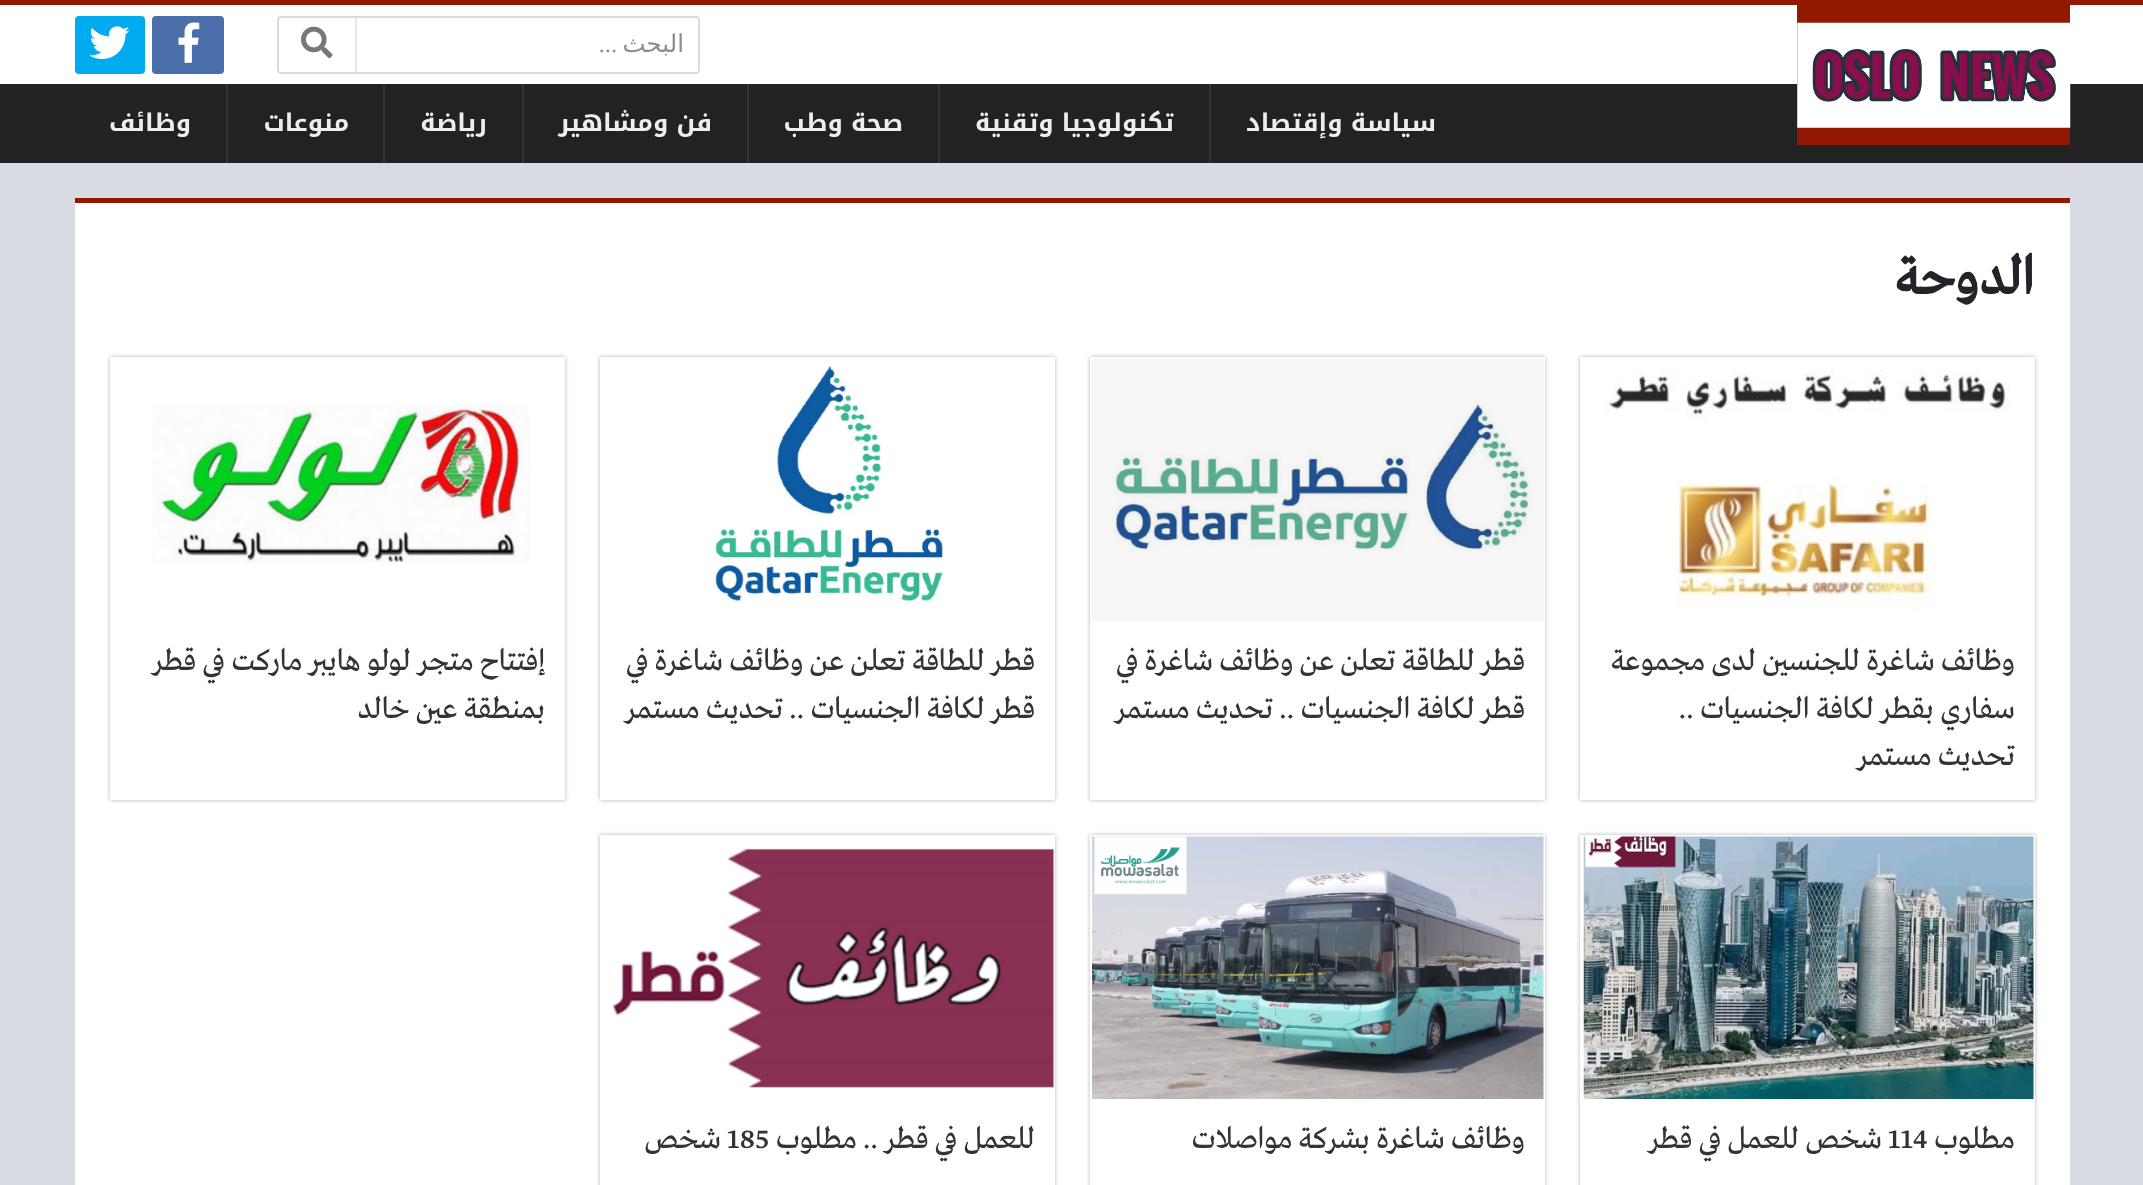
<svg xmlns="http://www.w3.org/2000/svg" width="2143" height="1185">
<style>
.a{font:24.5px DejaVu Sans;direction:rtl;fill:#868e96}
.b{font:24.5px Liberation Serif;direction:rtl;fill:#868e96}
.c{font:bold 24.5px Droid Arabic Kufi;direction:rtl;fill:#eee}
.d{font:bold 56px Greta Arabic;direction:rtl;fill:#212529}
.e{font:31.5px Greta Arabic;direction:rtl;fill:#333}
.f{font:31.5px Greta Arabic;fill:#333}
</style>
<defs>
<clipPath id="clip1"><path d="M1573 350h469v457h-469zm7 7h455v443h-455z" clip-rule="evenodd"/></clipPath>
<clipPath id="clip2"><path d="M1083 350h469v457h-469zm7 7h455v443h-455z" clip-rule="evenodd"/></clipPath>
<clipPath id="clip3"><path d="M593 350h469v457h-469zm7 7h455v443h-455z" clip-rule="evenodd"/></clipPath>
<clipPath id="clip4"><path d="M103 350h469v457h-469zm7 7h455v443h-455z" clip-rule="evenodd"/></clipPath>
<clipPath id="clip5"><path d="M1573 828h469v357h-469zm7 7h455v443h-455z" clip-rule="evenodd"/></clipPath>
<clipPath id="clip6"><path d="M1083 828h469v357h-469zm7 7h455v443h-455z" clip-rule="evenodd"/></clipPath>
<clipPath id="clip7"><path d="M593 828h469v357h-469zm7 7h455v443h-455z" clip-rule="evenodd"/></clipPath>
</defs>
<rect width="100%" height="100%" fill="#d8dbe1"/>
<path fill="#222" d="M0 84h2143v79H0z"/>
<path fill="#931800" d="M0 0h2143v5H0z"/>
<path fill="#fff" d="M0 5h2143v79H0z"/>
<rect fill="none" stroke="#dbdbdb" stroke-width="2" x="278" y="17" width="421" height="56" rx="3"/>
<path fill="#e6e6e6" d="M355 18h2v54H355z"/>
<image href="1.png" x="301" y="26" width="32" height="33"/>
<rect fill="#4a6ea9" x="152" y="16" width="72" height="58" rx="4"/>
<image href="2.png" x="178" y="22" width="22" height="41"/>
<rect fill="#00abf0" x="75" y="16" width="70" height="58" rx="4"/>
<image href="3.png" x="89" y="26" width="41" height="33"/>
<path fill="#931800" d="M1797 5h273v140H1797z"/>
<image href="4.png" x="1797" y="22" width="274" height="106"/>
<path fill="#343434" d="M1209 84h2v79H1209z"/>
<path fill="#343434" d="M938 84h2v79H938z"/>
<path fill="#343434" d="M747 84h2v79H747z"/>
<path fill="#343434" d="M522 84h2v79H522z"/>
<path fill="#343434" d="M383 84h2v79H383z"/>
<path fill="#343434" d="M226 84h2v79H226z"/>
<path fill="#fff" d="M75 203h1995v982H75z"/>
<path fill="#931800" d="M75 198h1995v5H75z"/>
<g clip-path="url(#clip1)">
<path fill="#0000004d" filter="blur(2px)" d="M1580 357h455v443H1580z"/>
</g>
<image href="5.png" x="1603" y="369" width="408" height="242"/>
<g clip-path="url(#clip2)">
<path fill="#0000004d" filter="blur(2px)" d="M1090 357h455v443H1090z"/>
</g>
<image href="6.png" x="1092" y="359" width="452" height="262"/>
<g clip-path="url(#clip3)">
<path fill="#0000004d" filter="blur(2px)" d="M600 357h455v443H600z"/>
</g>
<image href="7.png" x="712" y="365" width="234" height="238"/>
<g clip-path="url(#clip4)">
<path fill="#0000004d" filter="blur(2px)" d="M110 357h455v443H110z"/>
</g>
<image href="8.png" x="151" y="404" width="379" height="160"/>
<g clip-path="url(#clip5)">
<path fill="#0000004d" filter="blur(2px)" d="M1580 835h455v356H1580z"/>
</g>
<image href="9.png" x="1583" y="836" width="451" height="263"/>
<g clip-path="url(#clip6)">
<path fill="#0000004d" filter="blur(2px)" d="M1090 835h455v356H1090z"/>
</g>
<image href="10.png" x="1092" y="836" width="452" height="263"/>
<g clip-path="url(#clip7)">
<path fill="#0000004d" filter="blur(2px)" d="M600 835h455v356H600z"/>
</g>
<image href="11.png" x="612" y="848" width="442" height="240"/>
<text class="a" x="684" y="52">البحث</text>
<text class="b" x="617" y="52">...</text>
<text class="c" x="1436" y="131">سياسة وإقتصاد</text>
<text class="c" x="1174" y="131">تكنولوجيا وتقنية</text>
<text class="c" x="903" y="131">صحة وطب</text>
<text class="c" x="712" y="131">فن ومشاهير</text>
<text class="c" x="487" y="131">رياضة</text>
<text class="c" x="349" y="131">منوعات</text>
<text class="c" x="191" y="131">وظائف</text>
<text class="d" x="2034" y="294">الدوحة</text>
<text class="e" x="2015" y="670">وظائف شاغرة للجنسين لدى مجموعة</text>
<text class="e" x="2015" y="718">سفاري بقطر</text>
<text class="e" x="1874" y="718">لكافة الجنسيات ..</text>
<text class="e" x="2015" y="765">تحديث مستمر</text>
<text class="e" x="1525" y="670">قطر للطاقة تعلن عن وظائف شاغرة في</text>
<text class="e" x="1525" y="718">قطر لكافة الجنسيات .. تحديث مستمر</text>
<text class="e" x="1035" y="670">قطر للطاقة تعلن عن وظائف شاغرة في</text>
<text class="e" x="1035" y="718">قطر لكافة الجنسيات .. تحديث مستمر</text>
<text class="e" x="545" y="670">إفتتاح متجر لولو هايبر ماركت في قطر</text>
<text class="e" x="545" y="718">بمنطقة عين خالد</text>
<text class="e" x="2015" y="1148">مطلوب</text>
<text class="f" x="1888" y="1148">114</text>
<text class="e" x="1882" y="1148">شخص للعمل في قطر</text>
<text class="e" x="1525" y="1148">وظائف شاغرة بشركة مواصلات</text>
<text class="e" x="1035" y="1148">للعمل في قطر .. مطلوب</text>
<text class="f" x="727" y="1148">185</text>
<text class="e" x="721" y="1148">شخص</text>
</svg>
